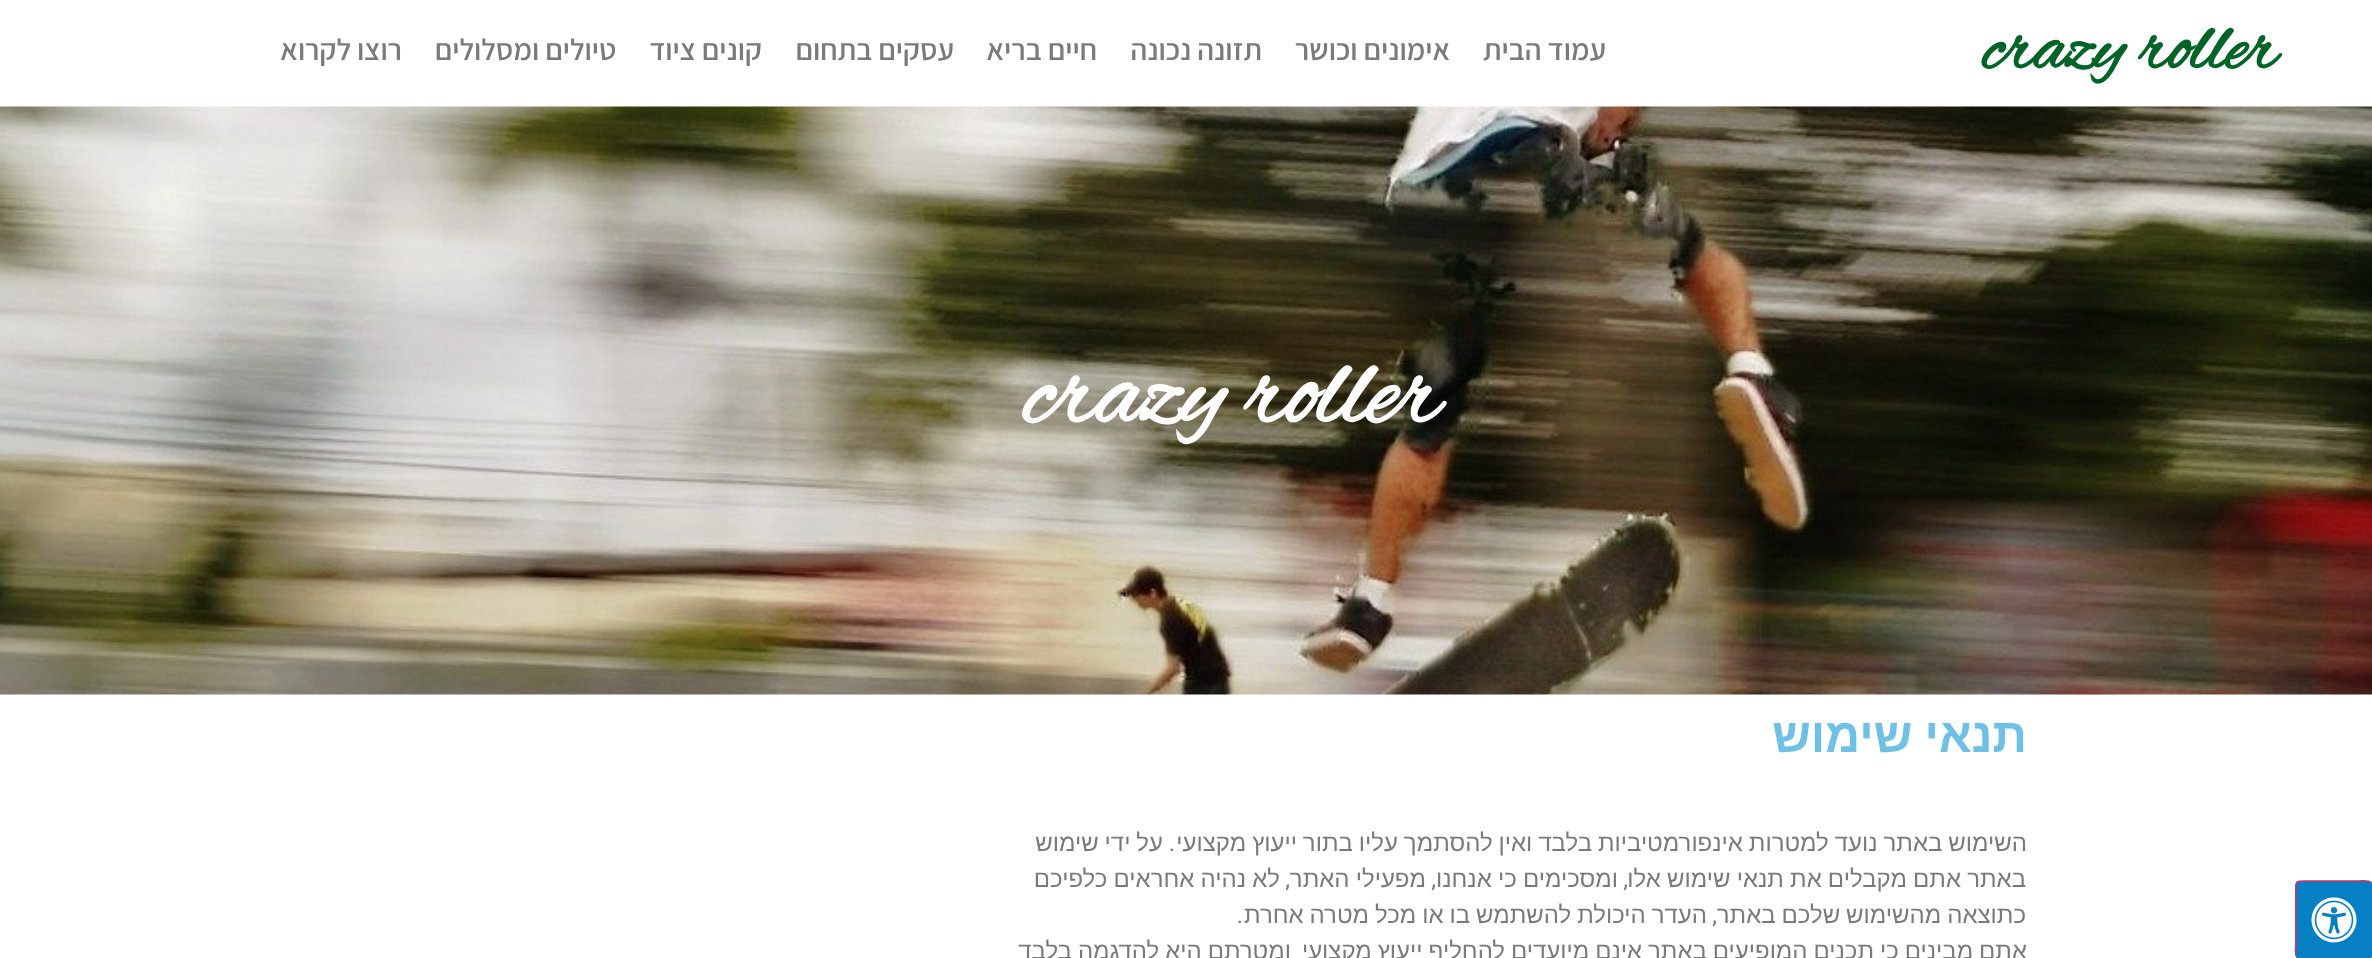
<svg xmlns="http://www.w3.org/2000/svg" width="2372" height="958">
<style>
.a{font:bold 76.5px Alex Brush;fill:#006427}
.b{font:600 30px Assistant;direction:rtl;fill:#7a7a7a}
.c{font:bold 108px Alex Brush;fill:#fff}
.d{font:bold 48px Liberation Sans;direction:rtl;fill:#6ec1e4}
.e{font:24px Liberation Sans;direction:rtl;fill:#7a7a7a}
.f{font:24px Roboto;direction:rtl;fill:#7a7a7a}
</style>
<rect width="100%" height="100%" fill="#fff"/>
<image href="1.png" x="0" y="106" width="2372" height="589"/>
<rect fill="#0780c3" x="2295" y="881" width="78" height="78" rx="5"/>
<path fill="none" stroke="#0780c3" stroke-width="1.5" d="M2371 882.5c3 2.5 1 13 1 14v46c0 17.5 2.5 15.5-15 15.5h-46c-1 0-11.5 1.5-14-1.5"/>
<path fill="none" stroke="#c36" stroke-width="1.5" d="M2297 956.5c-3-2.5-1-13-1-14v-46c0-17.5-2.5-15.5 15-15.5h46c1 0 11.5-1.5 14 1.5"/>
<image href="2.png" x="2311" y="897" width="46" height="46"/>
<text class="a" x="1982" y="68">crazy roller</text>
<text class="b" x="1606" y="60">עמוד הבית</text>
<text class="b" x="1450" y="60">אימונים וכושר</text>
<text class="b" x="1262" y="60">תזונה נכונה</text>
<text class="b" x="1097" y="60">חיים בריא</text>
<text class="b" x="954" y="60">עסקים בתחום</text>
<text class="b" x="762" y="60">קונים ציוד</text>
<text class="b" x="616" y="60">טיולים ומסלולים</text>
<text class="b" x="402" y="60">רוצו לקרוא</text>
<text class="c" x="1023" y="422">crazy roller</text>
<text class="d" x="2027" y="752" word-spacing="-1">תנאי שימוש</text>
<text class="e" x="2027" y="851" word-spacing="-0.75">השימוש באתר נועד למטרות אינפורמטיביות בלבד ואין להסתמך עליו בתור ייעוץ מקצועי</text>
<text class="f" x="1175" y="851">.</text>
<text class="e" x="1163" y="851" word-spacing="-0.75">על ידי שימוש</text>
<text class="e" x="2026" y="887" word-spacing="-0.5">באתר אתם מקבלים את תנאי שימוש אלו</text>
<text class="f" x="1628" y="887">,</text>
<text class="e" x="1618" y="887" word-spacing="-0.5">ומסכימים כי אנחנו</text>
<text class="f" x="1436" y="887">,</text>
<text class="e" x="1426" y="887" word-spacing="-0.5">מפעילי האתר</text>
<text class="f" x="1290" y="887">,</text>
<text class="e" x="1280" y="887" word-spacing="-0.5">לא נהיה אחראים כלפיכם</text>
<text class="e" x="2026" y="923" word-spacing="-0.75">כתוצאה מהשימוש שלכם באתר</text>
<text class="f" x="1717" y="923">,</text>
<text class="e" x="1707" y="923" word-spacing="-0.75">העדר היכולת להשתמש בו או מכל מטרה אחרת</text>
<text class="f" x="1243" y="923">.</text>
<text class="e" x="2027" y="959" word-spacing="-0.75">אתם מבינים כי תכנים המופיעים באתר אינם מיועדים להחליף ייעוץ מקצועי</text>
<text class="e" x="1291" y="959" word-spacing="-0.75">ומטרתם היא להדגמה בלבד</text>
</svg>
